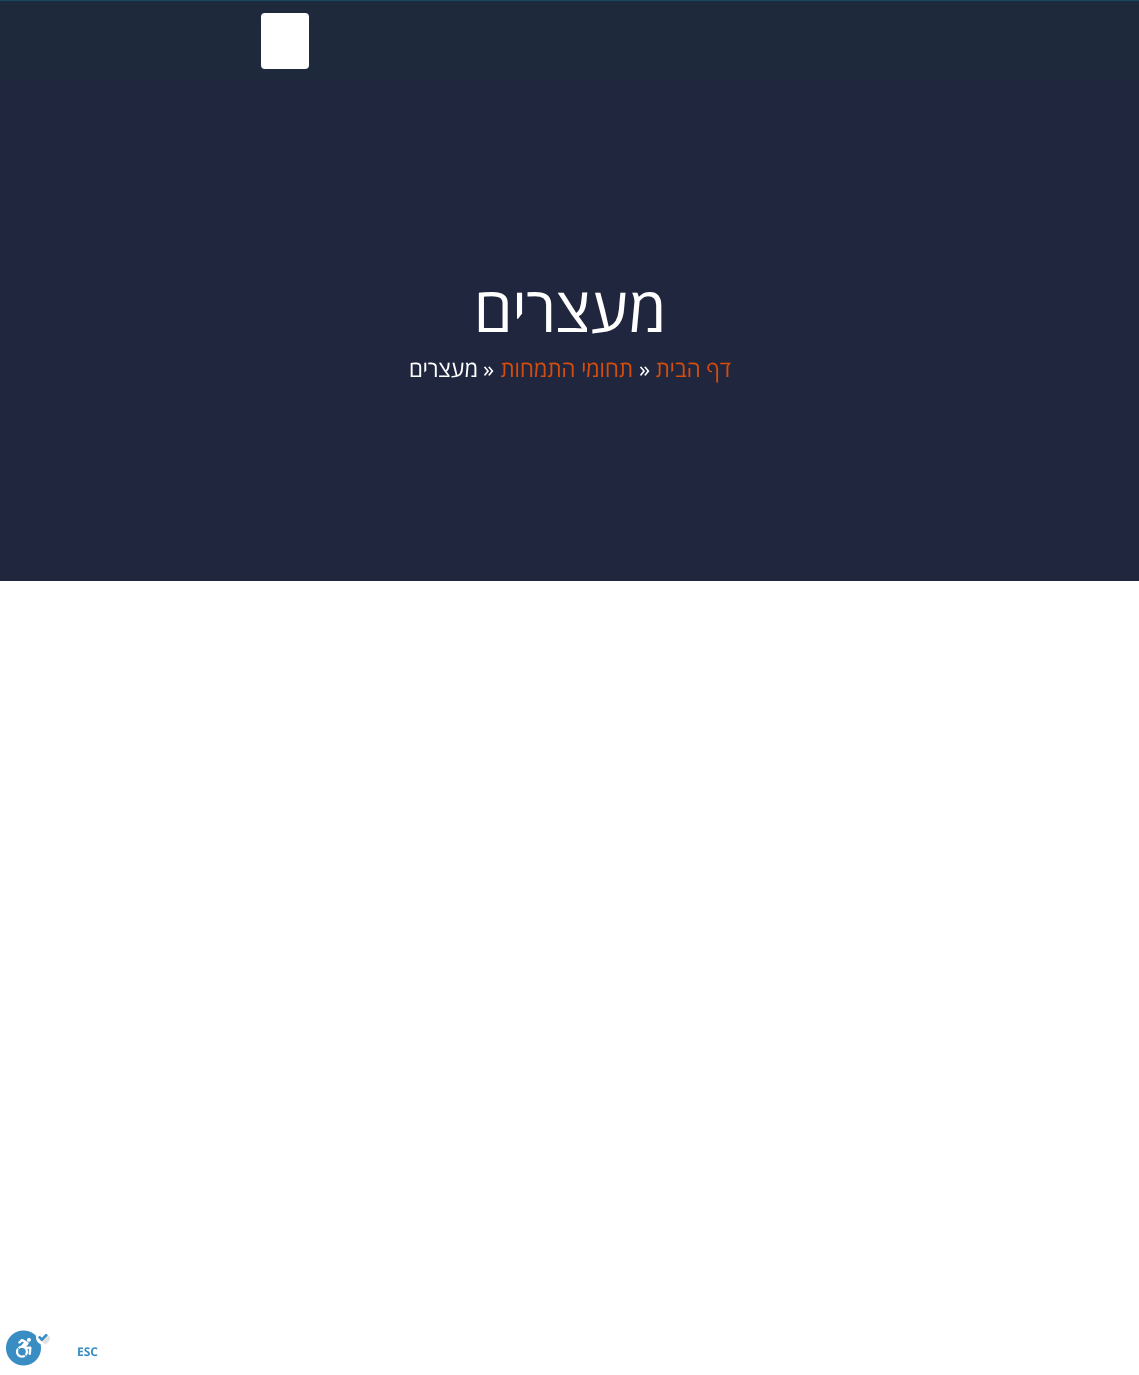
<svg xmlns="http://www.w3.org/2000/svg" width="1139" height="1375">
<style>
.a{font:62.5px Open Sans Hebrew;direction:rtl;fill:#fff}
.b{font:22.5px Open Sans Hebrew;direction:rtl;fill:#d44d0d}
.c{font:22.5px Open Sans Hebrew;fill:#fff}
.d{font:22.5px Open Sans Hebrew;direction:rtl;fill:#fff}
.e{font:bold 12px Open Sans Hebrew;fill:#3a8dc2}
</style>
<rect width="100%" height="100%" fill="#fff"/>
<path fill="#1f293c" d="M0 1h1139v80H0z"/>
<rect fill="#fff" x="261" y="13" width="48" height="56" rx="4"/>
<path fill="#20263d" d="M0 81h1139v500H0z"/>
<path fill="#15495f" d="M0 0h1139v1H0z"/>
<image href="1.png" x="6" y="1330" width="44" height="36"/>
<text class="a" x="666" y="332">מעצרים</text>
<text class="b" x="731" y="377">דף הבית</text>
<text class="c" x="639" y="377">»</text>
<text class="b" x="633" y="377">תחומי התמחות</text>
<text class="c" x="483" y="377">»</text>
<text class="d" x="478" y="377">מעצרים</text>
<text class="e" x="77" y="1356">ESC</text>
</svg>
